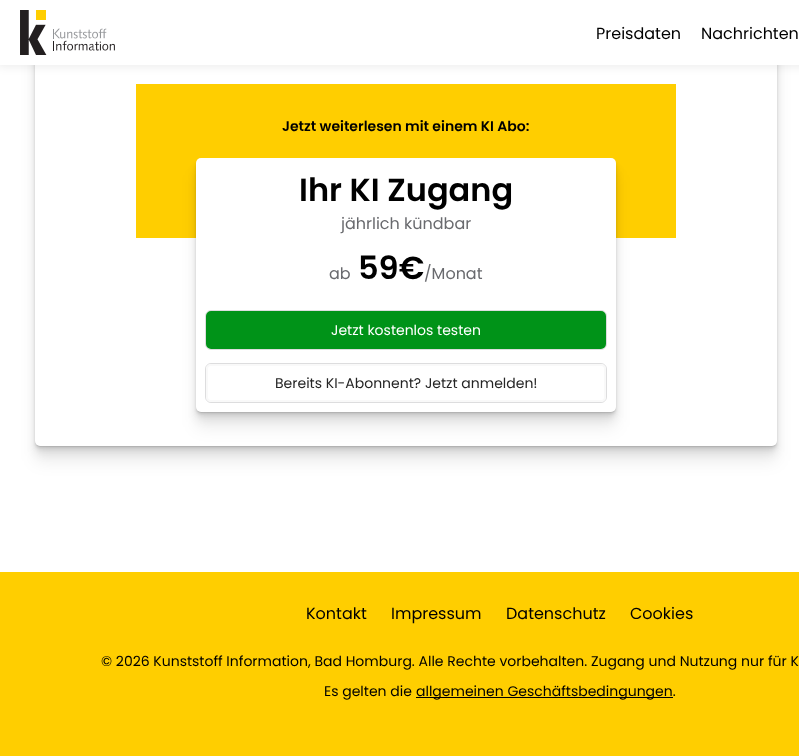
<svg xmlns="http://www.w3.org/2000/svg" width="799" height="756">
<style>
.a{font:16px Poppins;fill:#000}
.b{font:600 14px Poppins;fill:#000}
.c{font:600 32px Poppins;fill:#000}
.d{font:16px Poppins;fill:#696a6e}
.e{font:14px Poppins;fill:#fff}
.f{font:14px Poppins;fill:#252525}
.g{font:14px Poppins;fill:#000}
</style>
<rect width="100%" height="100%" fill="#fff"/>
<rect fill="#00000012" filter="blur(8px)" x="35" width="742" height="462" rx="5"/>
<rect fill="#00000012" filter="blur(4px)" x="35" y="-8" width="742" height="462" rx="5"/>
<rect fill="#00000012" filter="blur(2px)" x="35" y="-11" width="742" height="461" rx="5"/>
<rect fill="#00000012" filter="blur(1px)" x="35" y="-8" width="742" height="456" rx="5"/>
<rect fill="#00000012" filter="blur(0.5px)" x="35" y="-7" width="742" height="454" rx="5"/>
<rect fill="#fff" x="35" y="-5" width="742" height="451" rx="5"/>
<path fill="#00000012" filter="blur(4px)" d="M-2 -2h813v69H-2z"/>
<path fill="#fff" d="M0 0h799v65H0z"/>
<image href="1.png" x="20" y="10" width="95" height="45"/>
<path fill="#ffce00" d="M136 84h540v154H136z"/>
<rect fill="#00000012" filter="blur(8px)" x="196" y="174" width="420" height="254" rx="5"/>
<rect fill="#00000012" filter="blur(4px)" x="196" y="166" width="420" height="254" rx="5"/>
<rect fill="#00000012" filter="blur(2px)" x="196" y="162" width="420" height="254" rx="5"/>
<rect fill="#00000012" filter="blur(1px)" x="196" y="160" width="420" height="254" rx="5"/>
<rect fill="#00000012" filter="blur(0.5px)" x="196" y="159" width="420" height="254" rx="5"/>
<rect fill="#fff" x="196" y="158" width="420" height="254" rx="5"/>
<rect fill="none" stroke="#ddddde" x="205.5" y="310.5" width="401" height="39" rx="5.5"/>
<rect fill="#009318" stroke="#009318" stroke-width="2" x="207" y="312" width="398" height="36" rx="4"/>
<rect fill="none" stroke="#ddddde" x="205.5" y="363.5" width="401" height="39" rx="5.5"/>
<rect fill="#fff" stroke="#f9f9f9" stroke-width="2" x="207" y="365" width="398" height="36" rx="4"/>
<path fill="#ffce00" d="M0 572h799v184H0z"/>
<path fill="#000" d="M416 697h257v1H416z"/>
<text class="a" x="596" y="39">Preisdaten</text>
<text class="a" x="701" y="39">Nachrichten</text>
<text class="b" x="282" y="131">Jetzt weiterlesen mit einem KI Abo:</text>
<text class="c" x="299" y="201">Ihr KI Zugang</text>
<text class="d" x="341" y="229">jährlich kündbar</text>
<text class="d" x="329" y="279">ab</text>
<text class="c" x="358" y="279">59€</text>
<text class="d" x="424" y="279">/Monat</text>
<text class="e" x="331" y="335">Jetzt kostenlos testen</text>
<text class="f" x="275" y="388">Bereits KI-Abonnent? Jetzt anmelden!</text>
<text class="a" x="306" y="619">Kontakt</text>
<text class="a" x="391" y="619">Impressum</text>
<text class="a" x="506" y="619">Datenschutz</text>
<text class="a" x="630" y="619">Cookies</text>
<text class="g" x="101" y="666">© 2026 Kunststoff Information, Bad Homburg. Alle Rechte vorbehalten. Zugang und Nutzung nur für K</text>
<text class="g" x="324" y="696">Es gelten die</text>
<text class="g" x="416" y="696">allgemeinen Geschäftsbedingungen.</text>
</svg>
